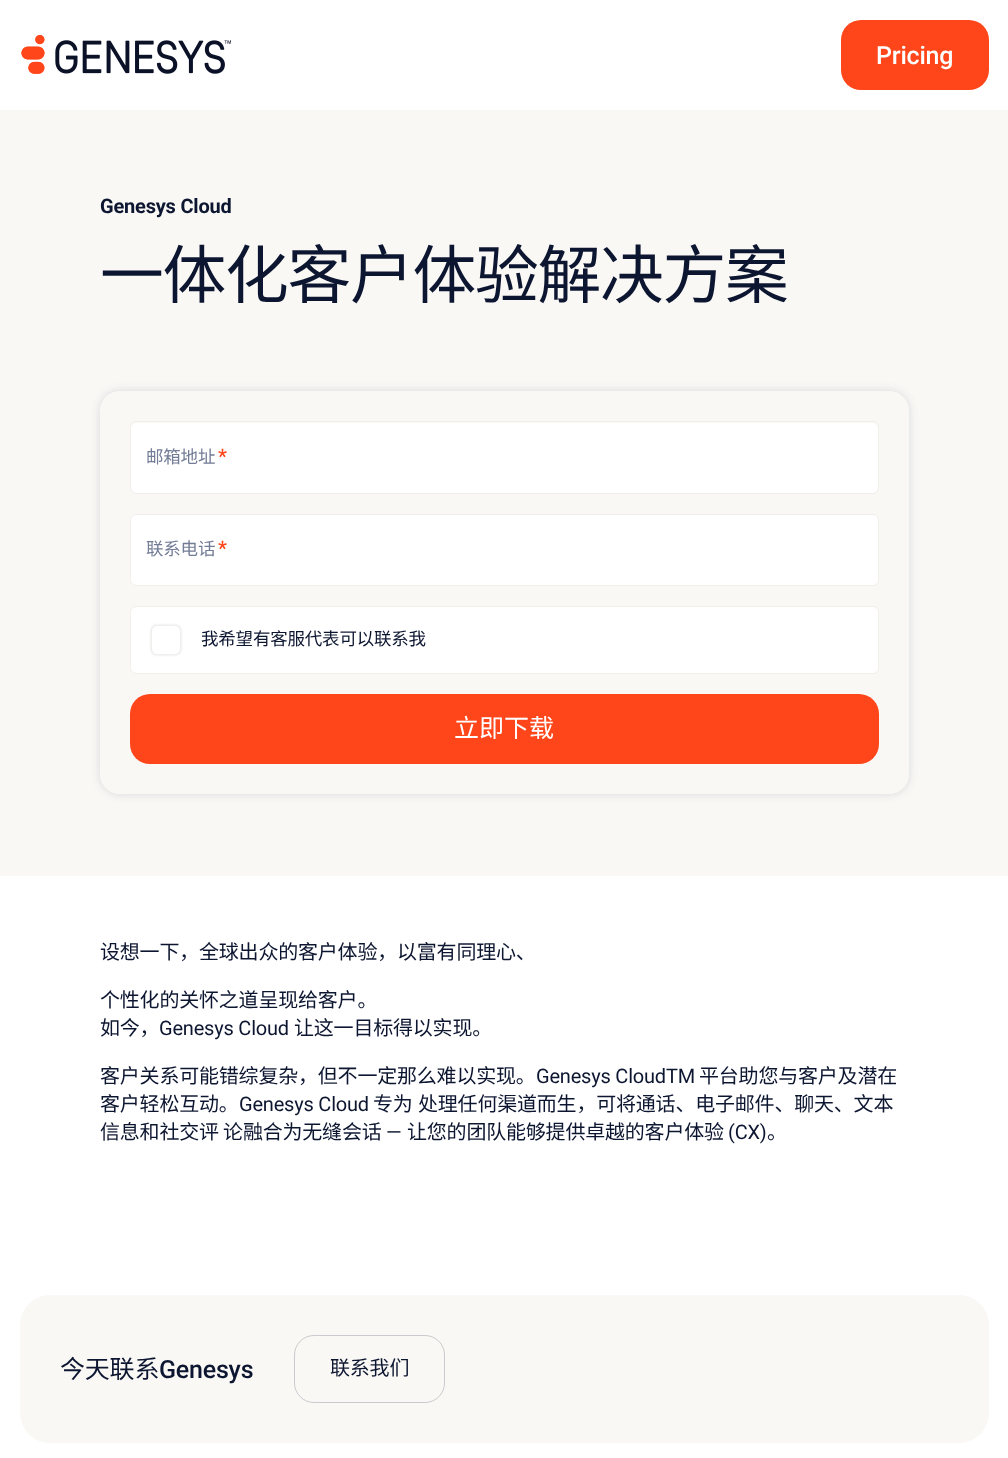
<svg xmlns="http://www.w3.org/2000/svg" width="1008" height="1458">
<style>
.a{font:500 25px Roboto;letter-spacing:-0.2px;fill:#fff}
.b{font:bold 20px Roboto;letter-spacing:-0.2px;fill:#0d1630}
.c{font:63.75px Noto Sans CJK SC;letter-spacing:-1.25px;fill:#0d1630}
.d{font:17.5px Noto Sans CJK SC;letter-spacing:-0.2px;fill:#737c96}
.e{font:500 20px Roboto;letter-spacing:-0.2px;fill:#ff451a}
.f{font:17.5px Noto Sans CJK SC;letter-spacing:-0.2px;fill:#0d1630}
.g{font:25px Noto Sans CJK SC;fill:#fff}
.h{font:20px Noto Sans CJK SC;letter-spacing:-0.2px;fill:#0d1630}
.i{font:20px Roboto;letter-spacing:-0.2px;fill:#0d1630}
.j{font:25px Noto Sans CJK SC;letter-spacing:-0.2px;fill:#0d1630}
.k{font:500 25px Roboto;letter-spacing:-0.2px;fill:#0d1630}
</style>
<defs>
<clipPath id="clip1"><path d="M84 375h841v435h-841zm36 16h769c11 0 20 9 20 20v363c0 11-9 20-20 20h-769c-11 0-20-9-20-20v-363c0-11 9-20 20-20z" clip-rule="evenodd"/></clipPath>
</defs>
<rect width="100%" height="100%" fill="#fff"/>
<image href="1.png" x="21" y="35" width="210" height="39"/>
<rect fill="#ff451a" x="841" y="20" width="148" height="70" rx="20"/>
<path fill="#f9f8f5" d="M0 110h1008v766H0z"/>
<g clip-path="url(#clip1)">
<rect fill="#15255026" filter="blur(5px)" x="100" y="391" width="809" height="403" rx="20"/>
</g>
<rect fill="#f9f8f5b3" x="100" y="391" width="809" height="403" rx="20"/>
<rect fill="#fff" x="131" y="423" width="747" height="70" rx="5"/>
<rect fill="none" stroke="#f1efea" x="130.5" y="421.5" width="748" height="72" rx="5.5"/>
<rect fill="#fff" stroke="#f1efea" x="130.5" y="514.5" width="748" height="71" rx="5.5"/>
<rect fill="#fff" stroke="#f1efea" x="130.5" y="606.5" width="748" height="67" rx="5.5"/>
<rect fill="#15255026" filter="blur(1px)" x="151" y="625" width="30" height="30" rx="6"/>
<rect fill="#fff" stroke="#f1efea" x="151.5" y="625.5" width="29" height="29" rx="5.5"/>
<rect fill="#ff451a" x="130" y="694" width="749" height="70" rx="20"/>
<rect fill="#f9f8f5" x="20" y="1295" width="969" height="148" rx="30"/>
<rect fill="none" stroke="#cacbce" x="294.5" y="1335.5" width="150" height="67" rx="19.5"/>
<text class="a" x="876" y="64">Pricing</text>
<text class="b" x="100" y="213">Genesys Cloud</text>
<text class="c" x="100" y="298">一体化客户体验解决方案</text>
<text class="d" x="146" y="463">邮箱地址</text>
<text class="e" x="218" y="463">*</text>
<text class="d" x="146" y="555">联系电话</text>
<text class="e" x="218" y="555">*</text>
<text class="f" x="201" y="645">我希望有客服代表可以联系我</text>
<text class="g" x="454" y="737">立即下载</text>
<text class="h" x="100" y="959">设想一下，全球出众的客户体验，以富有同理心、</text>
<text class="h" x="100" y="1007">个性化的关怀之道呈现给客户。</text>
<text class="h" x="100" y="1035">如今，</text>
<text class="i" x="159" y="1035">Genesys Cloud</text>
<text class="h" x="294" y="1035">让这一目标得以实现。</text>
<text class="h" x="100" y="1083">客户关系可能错综复杂，但不一定那么难以实现。</text>
<text class="i" x="536" y="1083">Genesys CloudTM</text>
<text class="h" x="699" y="1083">平台助您与客户及潜在</text>
<text class="h" x="100" y="1111">客户轻松互动。</text>
<text class="i" x="239" y="1111">Genesys Cloud</text>
<text class="h" x="373" y="1111">专为</text>
<text class="h" x="418" y="1111">处理任何渠道而生，可将通话、电子邮件、聊天、文本</text>
<text class="h" x="100" y="1139">信息和社交评 论融合为无缝会话</text>
<text class="i" x="386" y="1139">—</text>
<text class="h" x="407" y="1139">让您的团队能够提供卓越的客户体验</text>
<text class="i" x="728" y="1139">(CX)</text>
<text class="h" x="767" y="1139">。</text>
<text class="j" x="60" y="1378">今天联系</text>
<text class="k" x="159" y="1378">Genesys</text>
<text class="h" x="330" y="1375">联系我们</text>
</svg>
